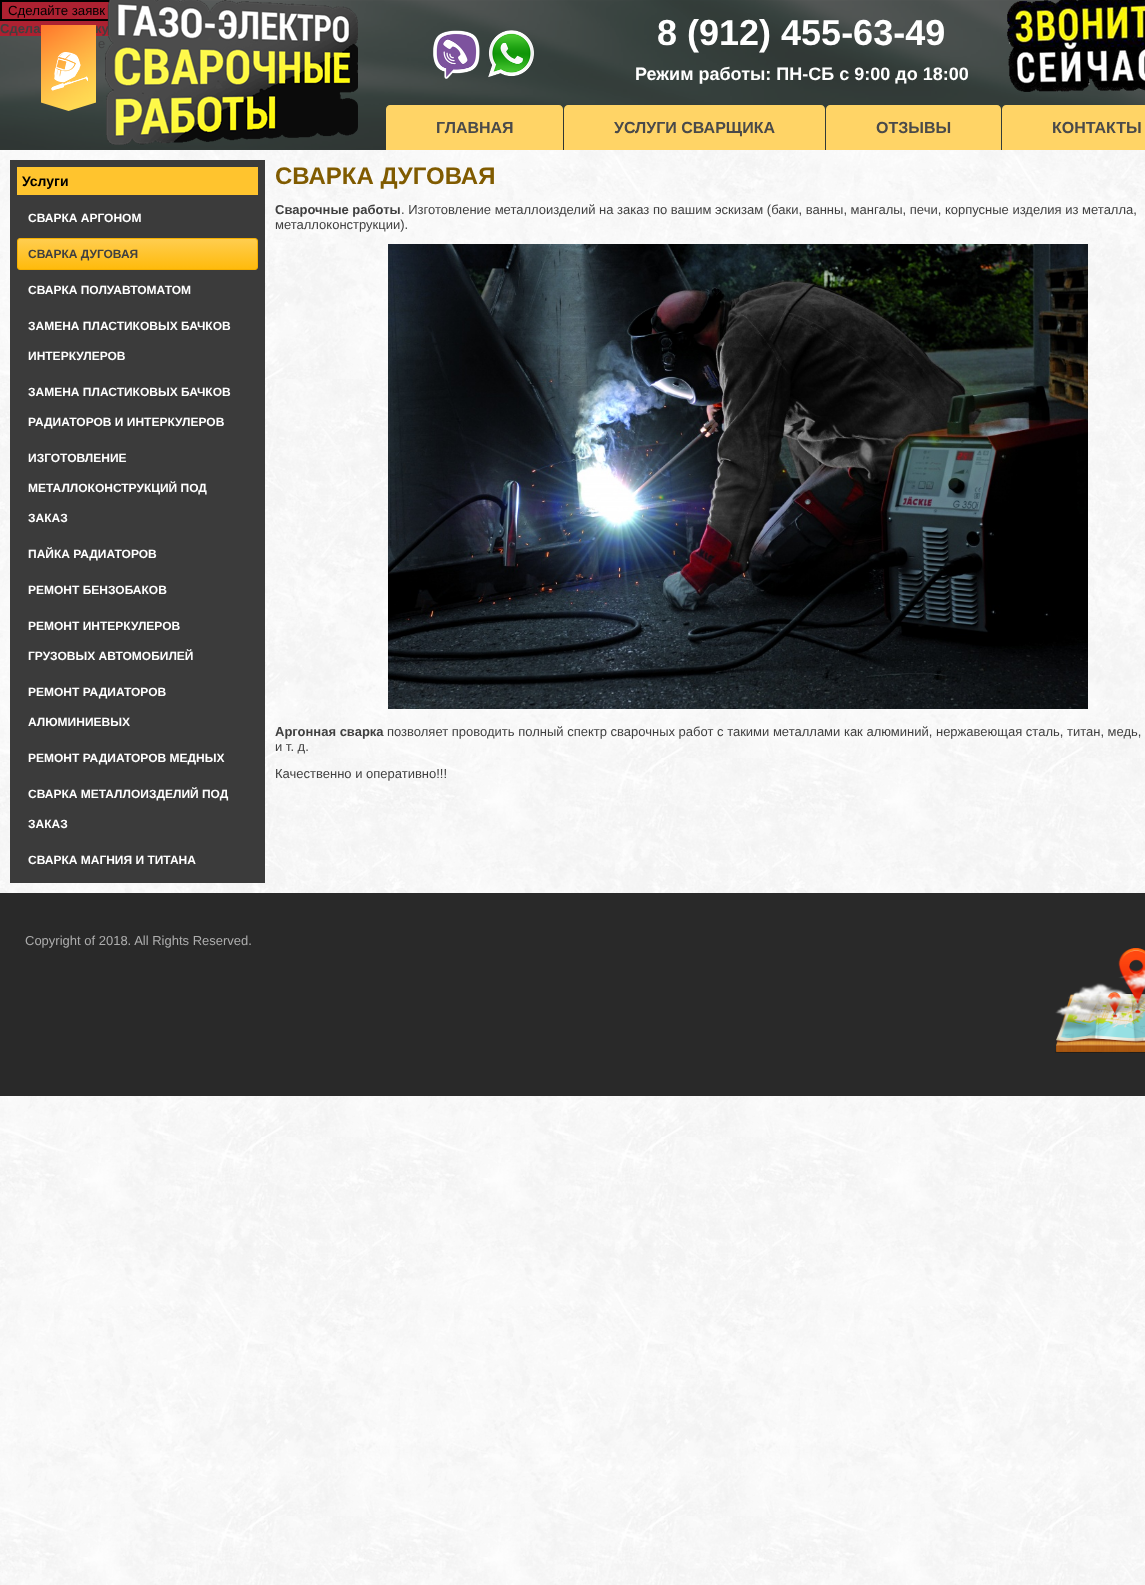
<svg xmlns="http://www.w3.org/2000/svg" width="1145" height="1585">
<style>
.a{font:13.25px Liberation Sans;fill:#000}
.b{font:bold 13px Liberation Sans;fill:#404040}
.c{font:13px Liberation Sans;fill:#404040}
.d{font:bold 36px Liberation Sans;fill:#fff}
.e{font:bold 18px Liberation Sans;fill:#fff}
.f{font:bold 16px Liberation Sans;fill:#4a4a4a}
.g{font:bold 14px Liberation Sans;fill:#000}
.h{font:bold 12px Liberation Sans;fill:#fff}
.i{font:bold 12px Liberation Sans;fill:#404040}
.j{font:bold 24px Liberation Sans;fill:#805b00}
.k{font:13px Liberation Sans;fill:#adadad}
</style>
<defs>
<linearGradient id="g1" gradientUnits="userSpaceOnUse" x1="138" y1="238" x2="138" y2="270"><stop offset="0" stop-color="#ffce52"/><stop offset="1" stop-color="#ffba0a"/></linearGradient>
</defs>
<rect width="100%" height="100%" fill="#fff"/>
<image href="1.png" x="0" y="150" width="1145" height="1435"/>
<image href="2.png" x="0" y="0" width="1145" height="150"/>
<path fill="#ad2131" d="M2 2h108v17H2z"/>
<path fill="none" stroke="#000" stroke-width="2" d="M1 1h119v19H1z"/>
<path fill="#ad2131" d="M0 21h109v15H0z"/>
<image href="4.png" x="1007" y="0" width="138" height="92"/>
<image href="6.png" x="433" y="30" width="47" height="49"/>
<image href="7.png" x="488" y="30" width="46" height="48"/>
<path fill="#ffd466" d="M390 105h169c2 0 4 2 4 4v41h-177v-41c0-2 2-4 4-4z"/>
<path fill="#ffd466" d="M568 105h253c2 0 4 2 4 4v41h-261v-41c0-2 2-4 4-4z"/>
<path fill="#ffd466" d="M830 105h167c2 0 4 2 4 4v41h-175v-41c0-2 2-4 4-4z"/>
<path fill="#ffd466" d="M1006 105h139c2 0 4 2 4 4v41h-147v-41c0-2 2-4 4-4z"/>
<path fill="#3b3b3b" d="M10 160h255v723H10z"/>
<path fill="#ffc42e" d="M17 167h241v28H17z"/>
<rect fill="url(#g1)" stroke="#f5af00" x="17.5" y="238.5" width="240" height="31" rx="2.5"/>
<image href="8.png" x="388" y="244" width="700" height="465"/>
<path fill="#292929" d="M0 893h1145v203H0z"/>
<image href="9.png" x="1055" y="948" width="90" height="105"/>
<text class="a" x="8" y="15">Сделайте заявк</text>
<text class="b" x="0" y="33">Сдела</text>
<text class="b" x="95" y="33">ку</text>
<text class="c" x="98" y="48">е</text>
<image href="3.png" x="105" y="0" width="253" height="145"/>
<text class="d" x="657" y="45">8 (912) 455-63-49</text>
<image href="5.png" x="41" y="25" width="55" height="86"/>
<text class="e" x="635" y="80">Режим работы: ПН-СБ с 9:00 до 18:00</text>
<text class="f" x="436" y="133">ГЛАВНАЯ</text>
<text class="f" x="614" y="133">УСЛУГИ СВАРЩИКА</text>
<text class="f" x="876" y="133">ОТЗЫВЫ</text>
<text class="f" x="1052" y="133">КОНТАКТЫ</text>
<text class="g" x="22" y="186">Услуги</text>
<text class="h" x="28" y="222">СВАРКА АРГОНОМ</text>
<text class="i" x="28" y="258">СВАРКА ДУГОВАЯ</text>
<text class="h" x="28" y="294">СВАРКА ПОЛУАВТОМАТОМ</text>
<text class="h" x="28" y="330">ЗАМЕНА ПЛАСТИКОВЫХ БАЧКОВ</text>
<text class="h" x="28" y="360">ИНТЕРКУЛЕРОВ</text>
<text class="h" x="28" y="396">ЗАМЕНА ПЛАСТИКОВЫХ БАЧКОВ</text>
<text class="h" x="28" y="426">РАДИАТОРОВ И ИНТЕРКУЛЕРОВ</text>
<text class="h" x="28" y="462">ИЗГОТОВЛЕНИЕ</text>
<text class="h" x="28" y="492">МЕТАЛЛОКОНСТРУКЦИЙ ПОД</text>
<text class="h" x="28" y="522">ЗАКАЗ</text>
<text class="h" x="28" y="558">ПАЙКА РАДИАТОРОВ</text>
<text class="h" x="28" y="594">РЕМОНТ БЕНЗОБАКОВ</text>
<text class="h" x="28" y="630">РЕМОНТ ИНТЕРКУЛЕРОВ</text>
<text class="h" x="28" y="660">ГРУЗОВЫХ АВТОМОБИЛЕЙ</text>
<text class="h" x="28" y="696">РЕМОНТ РАДИАТОРОВ</text>
<text class="h" x="28" y="726">АЛЮМИНИЕВЫХ</text>
<text class="h" x="28" y="762">РЕМОНТ РАДИАТОРОВ МЕДНЫХ</text>
<text class="h" x="28" y="798">СВАРКА МЕТАЛЛОИЗДЕЛИЙ ПОД</text>
<text class="h" x="28" y="828">ЗАКАЗ</text>
<text class="h" x="28" y="864">СВАРКА МАГНИЯ И ТИТАНА</text>
<text class="j" x="275" y="184">СВАРКА ДУГОВАЯ</text>
<text class="b" x="275" y="214">Сварочные работы</text>
<text class="c" x="401" y="214">. Изготовление металлоизделий на заказ по вашим эскизам (баки, ванны, мангалы, печи, корпусные изделия из металла,</text>
<text class="c" x="275" y="229">металлоконструкции).</text>
<text class="b" x="275" y="736">Аргонная сварка</text>
<text class="c" x="387" y="736">позволяет проводить полный спектр сварочных работ с такими металлами как алюминий, нержавеющая сталь, титан, медь,</text>
<text class="c" x="275" y="751">и т. д.</text>
<text class="c" x="275" y="778">Качественно и оперативно!!!</text>
<text class="k" x="25" y="945">Copyright of 2018. All Rights Reserved.</text>
</svg>
